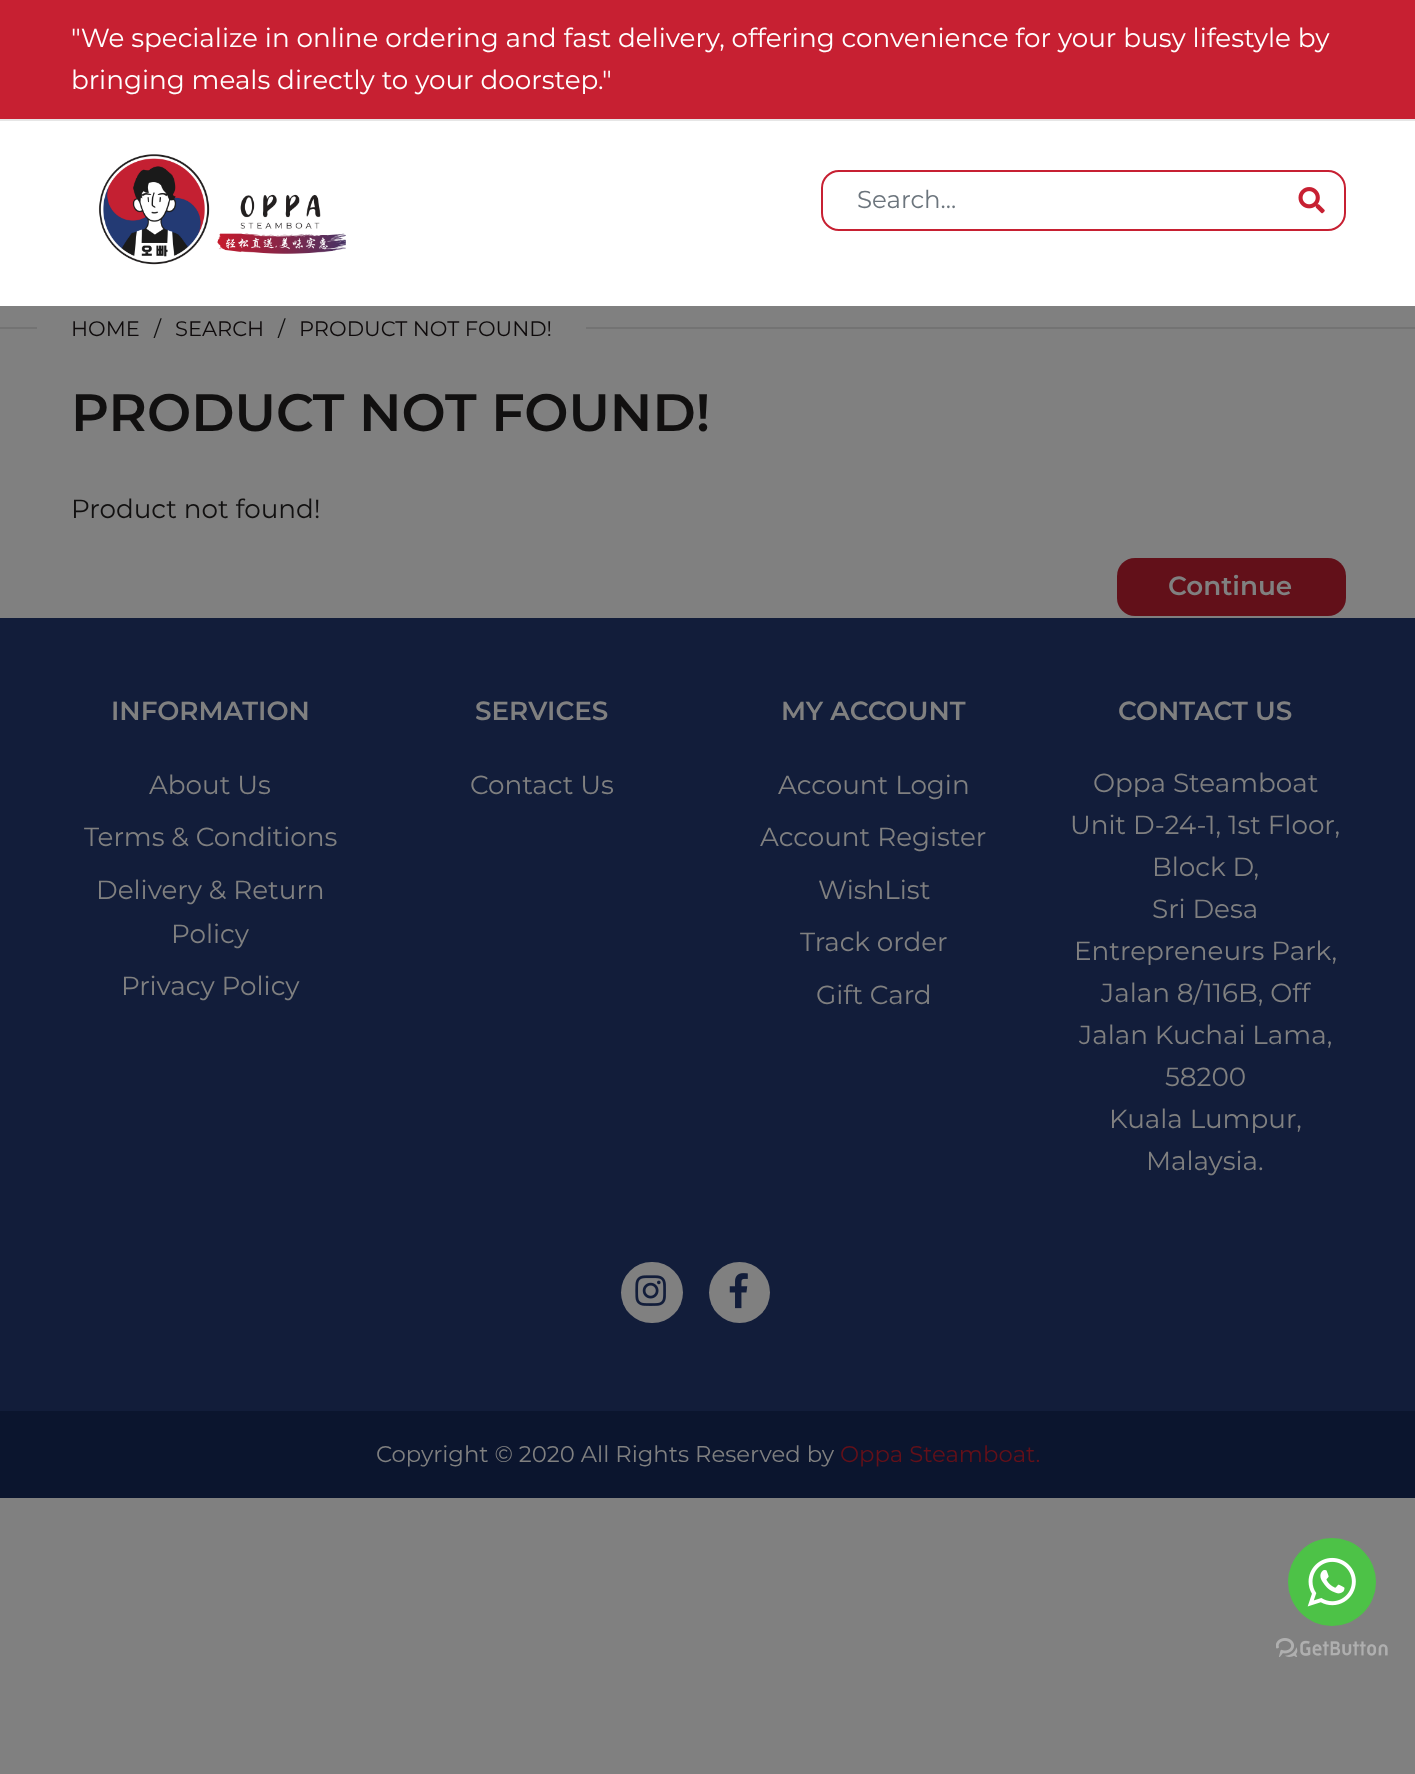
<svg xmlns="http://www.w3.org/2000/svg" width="1415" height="1774">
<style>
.a{font:26.25px Montserrat;fill:#fff}
.b{font:24.5px Montserrat;fill:#6c757d}
.c{font:21px Montserrat;fill:#0e0a0b}
.d{font:21px Montserrat;fill:#111010}
.e{font:600 52.5px Montserrat;fill:#111010}
.f{font:26.25px Montserrat;fill:#111010}
.g{font:600 26.25px Montserrat;fill:#808080}
.h{font:26.25px Montserrat;fill:#808080}
.i{font:22.75px Montserrat;fill:#808080}
.j{font:22.75px Montserrat;fill:#641019}
</style>
<rect width="100%" height="100%" fill="#808080"/>
<path fill="#fff" d="M0 121h1415v185H0z"/>
<path fill="#e6e6e6" d="M0 119h1415v2H0z"/>
<path fill="#c72032" d="M0 0h1415v119H0z"/>
<image href="1.png" x="98" y="154" width="248" height="111"/>
<rect fill="none" stroke="#c72032" stroke-width="2" x="822" y="171" width="523" height="59" rx="17"/>
<image href="2.png" x="1298" y="187" width="27" height="27"/>
<path fill="#737373" d="M0 327h1415v2H0z"/>
<path fill="#808080" d="M37 327h549v2H37z"/>
<rect fill="#621019" x="1117" y="558" width="229" height="58" rx="18"/>
<path fill="#121d3a" d="M0 618h1415v793H0z"/>
<rect fill="#808080" x="621" y="1262" width="62" height="61" rx="30.5"/>
<image href="3.png" x="635" y="1275" width="31" height="31"/>
<circle fill="#808080" cx="739.5" cy="1292.5" r="30.5"/>
<image href="4.png" x="729" y="1273" width="19" height="36"/>
<path fill="#0b152e" d="M0 1411h1415v87H0z"/>
<circle fill="#4dc247" cx="1332" cy="1582" r="44"/>
<image href="5.png" x="1307" y="1557" width="49" height="50"/>
<image href="6.png" x="1276" y="1638" width="112" height="19"/>
<text class="a" x="71" y="47">"We specialize in online ordering and fast delivery, offering convenience for your busy lifestyle by</text>
<text class="a" x="71" y="89">bringing meals directly to your doorstep."</text>
<text class="b" x="857" y="208">Search...</text>
<text class="c" x="71" y="336">HOME</text>
<text class="d" x="154" y="336">/</text>
<text class="c" x="175" y="336">SEARCH</text>
<text class="d" x="278" y="336">/</text>
<text class="c" x="299" y="336">PRODUCT NOT FOUND!</text>
<text class="e" x="71" y="431">PRODUCT NOT FOUND!</text>
<text class="f" x="71" y="518">Product not found!</text>
<text class="g" x="1168" y="595">Continue</text>
<text class="g" x="111" y="720">INFORMATION</text>
<text class="h" x="149" y="794">About Us</text>
<text class="h" x="84" y="846">Terms &amp; Conditions</text>
<text class="h" x="96" y="899">Delivery &amp; Return</text>
<text class="h" x="171" y="943">Policy</text>
<text class="h" x="121" y="995">Privacy Policy</text>
<text class="g" x="475" y="720">SERVICES</text>
<text class="h" x="470" y="794">Contact Us</text>
<text class="g" x="781" y="720">MY ACCOUNT</text>
<text class="h" x="778" y="794">Account Login</text>
<text class="h" x="760" y="846">Account Register</text>
<text class="h" x="818" y="899">WishList</text>
<text class="h" x="800" y="951">Track order</text>
<text class="h" x="816" y="1004">Gift Card</text>
<text class="g" x="1118" y="720">CONTACT US</text>
<text class="h" x="1093" y="792">Oppa Steamboat</text>
<text class="h" x="1070" y="834">Unit D-24-1, 1st Floor,</text>
<text class="h" x="1152" y="876">Block D,</text>
<text class="h" x="1152" y="918">Sri Desa</text>
<text class="h" x="1074" y="960">Entrepreneurs Park,</text>
<text class="h" x="1101" y="1002">Jalan 8/116B, Off</text>
<text class="h" x="1079" y="1044">Jalan Kuchai Lama,</text>
<text class="h" x="1165" y="1086">58200</text>
<text class="h" x="1109" y="1128">Kuala Lumpur,</text>
<text class="h" x="1146" y="1170">Malaysia.</text>
<text class="i" x="376" y="1462">Copyright © 2020 All Rights Reserved by</text>
<text class="j" x="840" y="1462">Oppa Steamboat.</text>
</svg>
